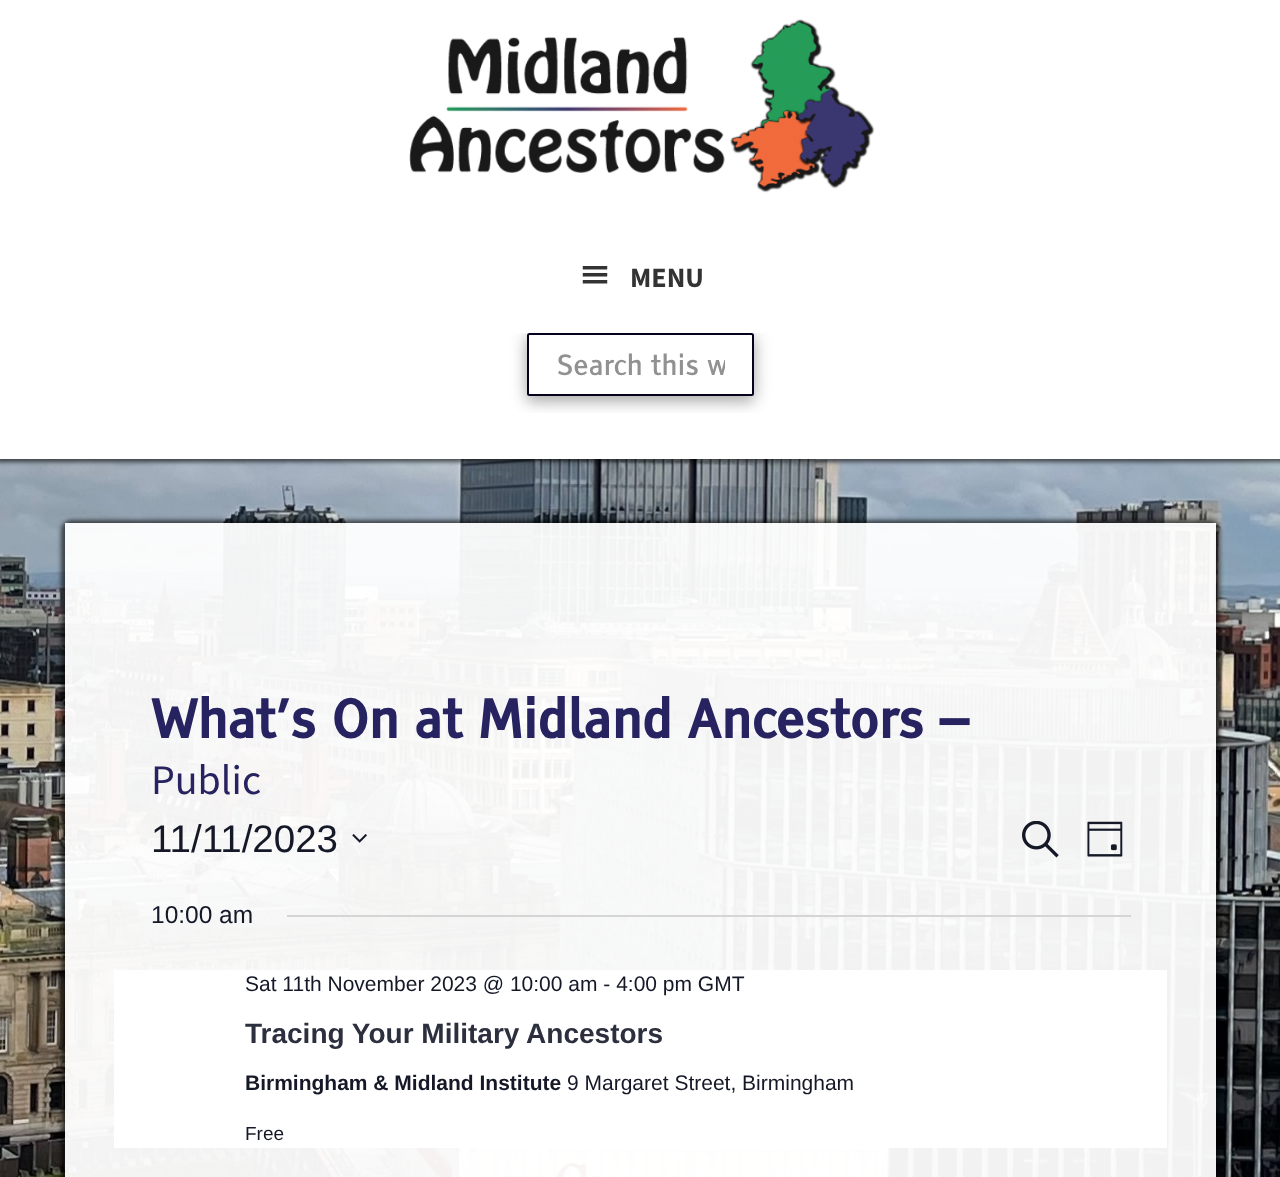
<svg xmlns="http://www.w3.org/2000/svg" width="1280" height="1177">
<style>
.a{font:bold 28px Source Sans Pro;fill:#333}
.b{font:28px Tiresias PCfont;fill:#919191}
.c{font:bold 52.5px Tiresias PCfont;fill:#272361}
.d{font:42px Source Sans Pro;fill:#272361}
.e{font:38.5px Liberation Sans;fill:#141827}
.f{font:24.5px Liberation Sans;fill:#141827}
.g{font:21px Liberation Sans;fill:#141827}
.h{font:bold 28px Liberation Sans;fill:#2c2f3d}
.i{font:bold 21px Liberation Sans;fill:#141827}
.j{font:19px Liberation Sans;fill:#141827}
</style>
<defs>
<clipPath id="clip1"><path d="M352 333h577v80H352z"/></clipPath>
<clipPath id="clip2"><path d="M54 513h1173v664h-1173zm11 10h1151v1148c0 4-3 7-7 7h-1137c-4 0-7-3-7-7z" clip-rule="evenodd"/></clipPath>
<clipPath id="clip3"><path d="M557 347h168v35H557z"/></clipPath>
</defs>
<rect width="100%" height="100%" fill="#fff"/>
<image href="1.png" x="0" y="459" width="1280" height="718"/>
<path fill="#00000099" filter="blur(2px)" d="M-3 -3h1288v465H-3z"/>
<path fill="#fff" d="M0 0h1280v459H0z"/>
<image href="2.png" x="409" y="19" width="466" height="174"/>
<image href="3.png" x="582" y="266" width="26" height="18"/>
<g clip-path="url(#clip1)">
<rect fill="#00000030" filter="blur(9px)" x="527" y="334" width="227" height="63" rx="2.5"/>
<rect fill="#00000033" filter="blur(7px)" x="527" y="340" width="227" height="63" rx="2.5"/>
</g>
<rect fill="#fff" stroke="#06021d" stroke-width="2" x="528" y="334" width="225" height="61" rx="1.5"/>
<g clip-path="url(#clip2)">
<rect fill="#00000099" filter="blur(2px)" x="61" y="520" width="1159" height="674" rx="11"/>
</g>
<path fill="#fffffff2" d="M65 523h1151v654H65z"/>
<image href="4.png" x="352" y="834" width="15" height="9"/>
<image href="5.png" x="1022" y="821" width="37" height="37"/>
<image href="6.png" x="1087" y="821" width="36" height="36"/>
<path fill="#d5d5d5" d="M287 915h844v2H287z"/>
<path fill="#fff" d="M114 970h1053v178H114z"/>
<text class="a" x="630" y="287">MENU</text>
<g clip-path="url(#clip3)">
<text class="b" x="557" y="375">Search this w</text>
</g>
<text class="c" x="151" y="738">What’s On at Midland Ancestors –</text>
<text class="d" x="151" y="794">Public</text>
<text class="e" x="151" y="852">11/11/2023</text>
<text class="f" x="151" y="923">10:00 am</text>
<text class="g" x="245" y="991">Sat 11th November 2023 @ 10:00 am - 4:00 pm GMT</text>
<text class="h" x="245" y="1043">Tracing Your Military Ancestors</text>
<text class="i" x="245" y="1090">Birmingham &amp; Midland Institute</text>
<text class="g" x="567" y="1090">9 Margaret Street, Birmingham</text>
<text class="j" x="245" y="1140">Free</text>
</svg>
